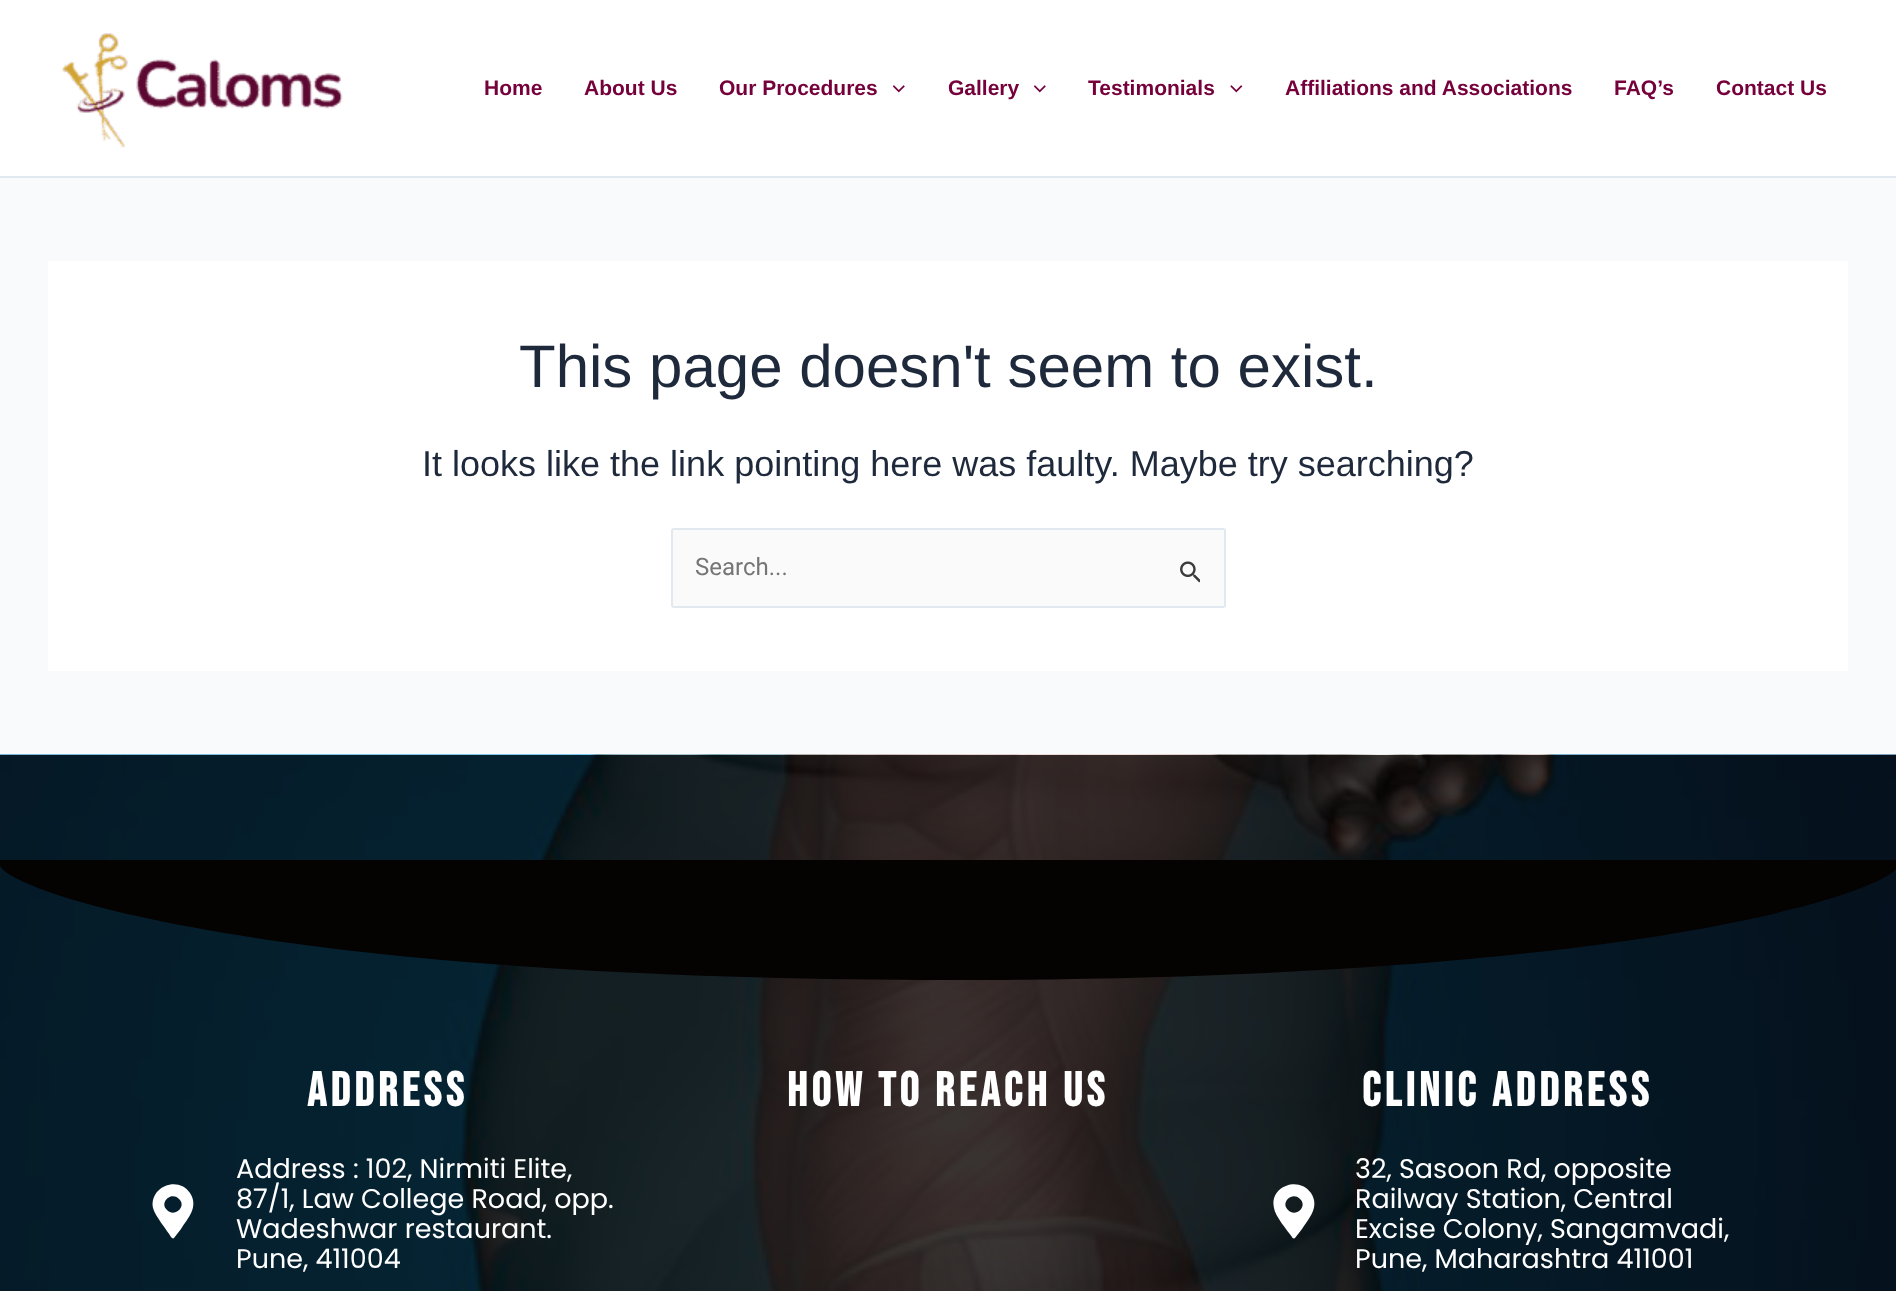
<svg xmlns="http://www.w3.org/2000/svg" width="1896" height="1291">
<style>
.a{font:bold 21px Liberation Sans;fill:#75003b}
.b{font:60px Liberation Sans;fill:#1e293b}
.c{font:36px Liberation Sans;fill:#1e293b}
.d{font:24px Roboto;fill:#757575}
.e{font:bold 48px Bebas Neue;letter-spacing:4.3px;fill:#fff}
.f{font:27px Poppins;fill:#fff}
</style>
<rect width="100%" height="100%" fill="#f9fafb"/>
<path fill="#fff" d="M0 0h1896v176H0z"/>
<path fill="#e2e8f0" d="M0 176h1896v2H0z"/>
<image href="1.png" x="61" y="33" width="282" height="115"/>
<image href="2.png" x="893" y="85" width="12" height="8"/>
<image href="2.png" x="1034" y="85" width="12" height="8"/>
<image href="3.png" x="1230" y="85" width="13" height="8"/>
<path fill="#fff" d="M48 261h1800v410H48z"/>
<rect fill="#fafafa" stroke="#e2e8f0" stroke-width="2" x="672" y="529" width="553" height="78" rx="2"/>
<image href="4.png" x="1180" y="561" width="20" height="22"/>
<image href="5.png" x="0" y="754" width="1896" height="537"/>
<path fill="#050202" d="M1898 865v-5h-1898v5c2 22 240 114 949 115c708 0 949-93 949-115z"/>
<path fill="#fff" d="M171 1237c-4-7-16-21-18-29c-4-21 25-33 37-15c9 14-2 25-9 36l-7 9c-1 1-2 0-3-1zm-4-27c8 8 20-4 12-11c-8-8-20 4-12 11z"/>
<path fill="#fff" d="M1292 1237c-5-7-17-21-18-29c-5-21 24-33 37-15c9 14-2 25-9 36l-7 9c-1 1-3 0-3-1zm-4-27c8 8 20-4 12-11c-8-8-20 4-12 11z"/>
<text class="a" x="484" y="95">Home</text>
<text class="a" x="584" y="95">About Us</text>
<text class="a" x="719" y="95">Our Procedures</text>
<text class="a" x="948" y="95">Gallery</text>
<text class="a" x="1088" y="95">Testimonials</text>
<text class="a" x="1285" y="95">Affiliations and Associations</text>
<text class="a" x="1614" y="95">FAQ’s</text>
<text class="a" x="1716" y="95">Contact Us</text>
<text class="b" x="519" y="387">This page doesn't seem to exist.</text>
<text class="c" x="422" y="476">It looks like the link pointing here was faulty. Maybe try searching?</text>
<text class="d" x="695" y="575">Search...</text>
<text class="e" x="307" y="1106">Address</text>
<text class="f" x="236" y="1178">Address : 102, Nirmiti Elite,</text>
<text class="f" x="236" y="1208">87/1, Law College Road, opp.</text>
<text class="f" x="236" y="1238">Wadeshwar restaurant.</text>
<text class="f" x="236" y="1268">Pune, 411004</text>
<text class="e" x="787" y="1106">How to reach us</text>
<text class="e" x="1362" y="1106">Clinic address</text>
<text class="f" x="1355" y="1178">32, Sasoon Rd, opposite</text>
<text class="f" x="1355" y="1208">Railway Station, Central</text>
<text class="f" x="1355" y="1238">Excise Colony, Sangamvadi,</text>
<text class="f" x="1355" y="1268">Pune, Maharashtra 411001</text>
</svg>
